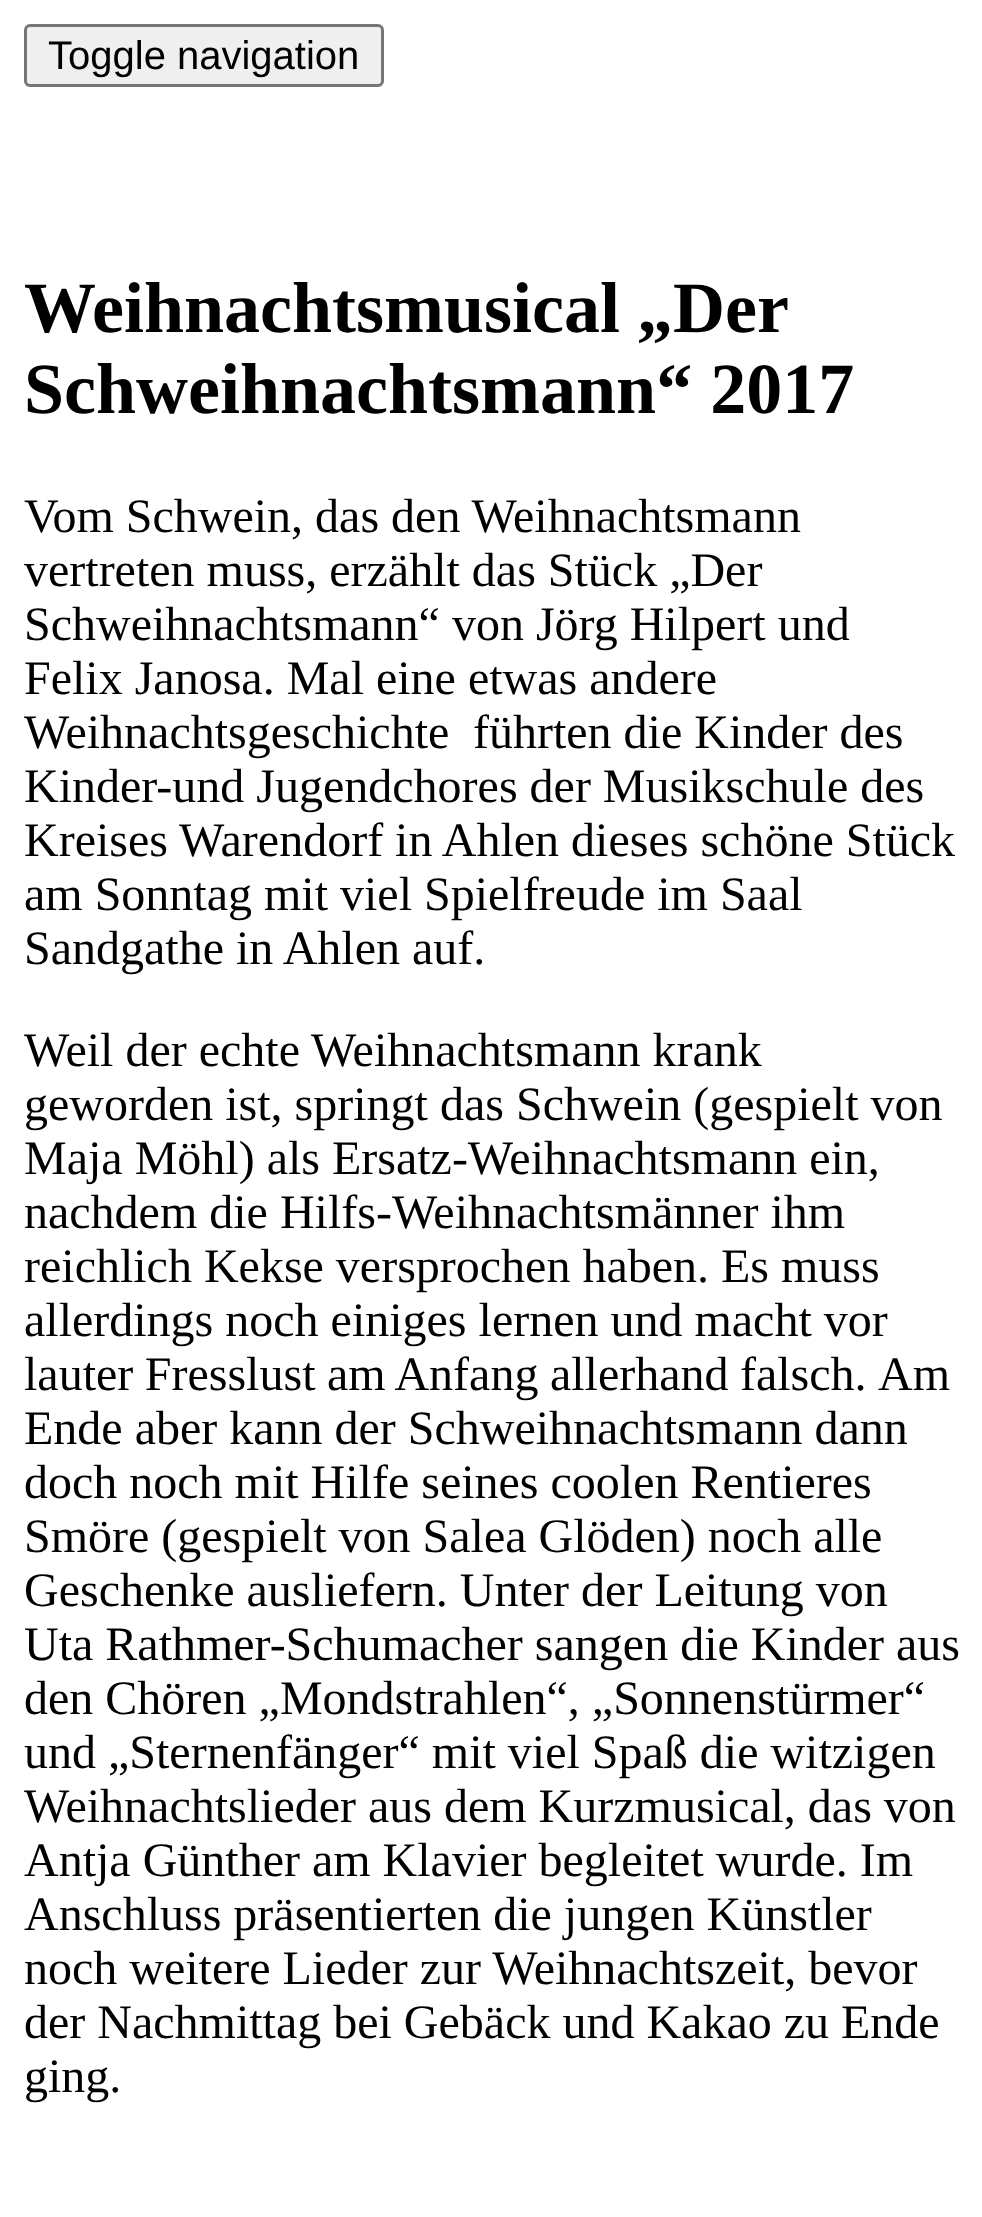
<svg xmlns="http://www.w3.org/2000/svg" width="982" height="2217">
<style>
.a{font:40px Liberation Sans;fill:#000}
.b{font:bold 72px Liberation Serif;fill:#000}
.c{font:48px Liberation Serif;fill:#000}
</style>
<rect width="100%" height="100%" fill="#fff"/>
<rect fill="#efefef" stroke="#767676" stroke-width="3" x="25.5" y="25.5" width="357" height="60" rx="4.5"/>
<text class="a" x="48" y="69">Toggle navigation</text>
<text class="b" x="24" y="332" word-spacing="-1">Weihnachtsmusical „Der</text>
<text class="b" x="24" y="413">Schweihnachtsmann“ 2017</text>
<text class="c" x="24" y="532">Vom Schwein, das den Weihnachtsmann</text>
<text class="c" x="24" y="586">vertreten muss, erzählt das Stück „Der</text>
<text class="c" x="24" y="640">Schweihnachtsmann“ von Jörg Hilpert und</text>
<text class="c" x="24" y="694">Felix Janosa. Mal eine etwas andere</text>
<text class="c" x="24" y="748">Weihnachtsgeschichte</text>
<text class="c" x="473" y="748">führten die Kinder des</text>
<text class="c" x="24" y="802">Kinder-und Jugendchores der Musikschule des</text>
<text class="c" x="24" y="856">Kreises Warendorf in Ahlen dieses schöne Stück</text>
<text class="c" x="24" y="910">am Sonntag mit viel Spielfreude im Saal</text>
<text class="c" x="24" y="964">Sandgathe in Ahlen auf.</text>
<text class="c" x="24" y="1066">Weil der echte Weihnachtsmann krank</text>
<text class="c" x="24" y="1120">geworden ist, springt das Schwein (gespielt von</text>
<text class="c" x="24" y="1174">Maja Möhl) als Ersatz-Weihnachtsmann ein,</text>
<text class="c" x="24" y="1228">nachdem die Hilfs-Weihnachtsmänner ihm</text>
<text class="c" x="24" y="1282">reichlich Kekse versprochen haben. Es muss</text>
<text class="c" x="24" y="1336">allerdings noch einiges lernen und macht vor</text>
<text class="c" x="24" y="1390" word-spacing="-0.5">lauter Fresslust am Anfang allerhand falsch.</text>
<text class="c" x="878" y="1390">Am</text>
<text class="c" x="24" y="1444">Ende aber kann der Schweihnachtsmann dann</text>
<text class="c" x="24" y="1498">doch noch mit Hilfe seines coolen Rentieres</text>
<text class="c" x="24" y="1552">Smöre (gespielt von Salea Glöden) noch alle</text>
<text class="c" x="24" y="1606">Geschenke ausliefern. Unter der Leitung von</text>
<text class="c" x="24" y="1660">Uta Rathmer-Schumacher sangen die Kinder aus</text>
<text class="c" x="24" y="1714">den Chören „Mondstrahlen“, „Sonnenstürmer“</text>
<text class="c" x="24" y="1768">und „Sternenfänger“ mit viel Spaß die witzigen</text>
<text class="c" x="24" y="1822">Weihnachtslieder aus dem Kurzmusical, das von</text>
<text class="c" x="24" y="1876">Antja Günther am Klavier begleitet wurde. Im</text>
<text class="c" x="24" y="1930">Anschluss präsentierten die jungen Künstler</text>
<text class="c" x="24" y="1984">noch weitere Lieder zur Weihnachtszeit, bevor</text>
<text class="c" x="24" y="2038">der Nachmittag bei Gebäck und Kakao zu Ende</text>
<text class="c" x="24" y="2092">ging.</text>
</svg>
